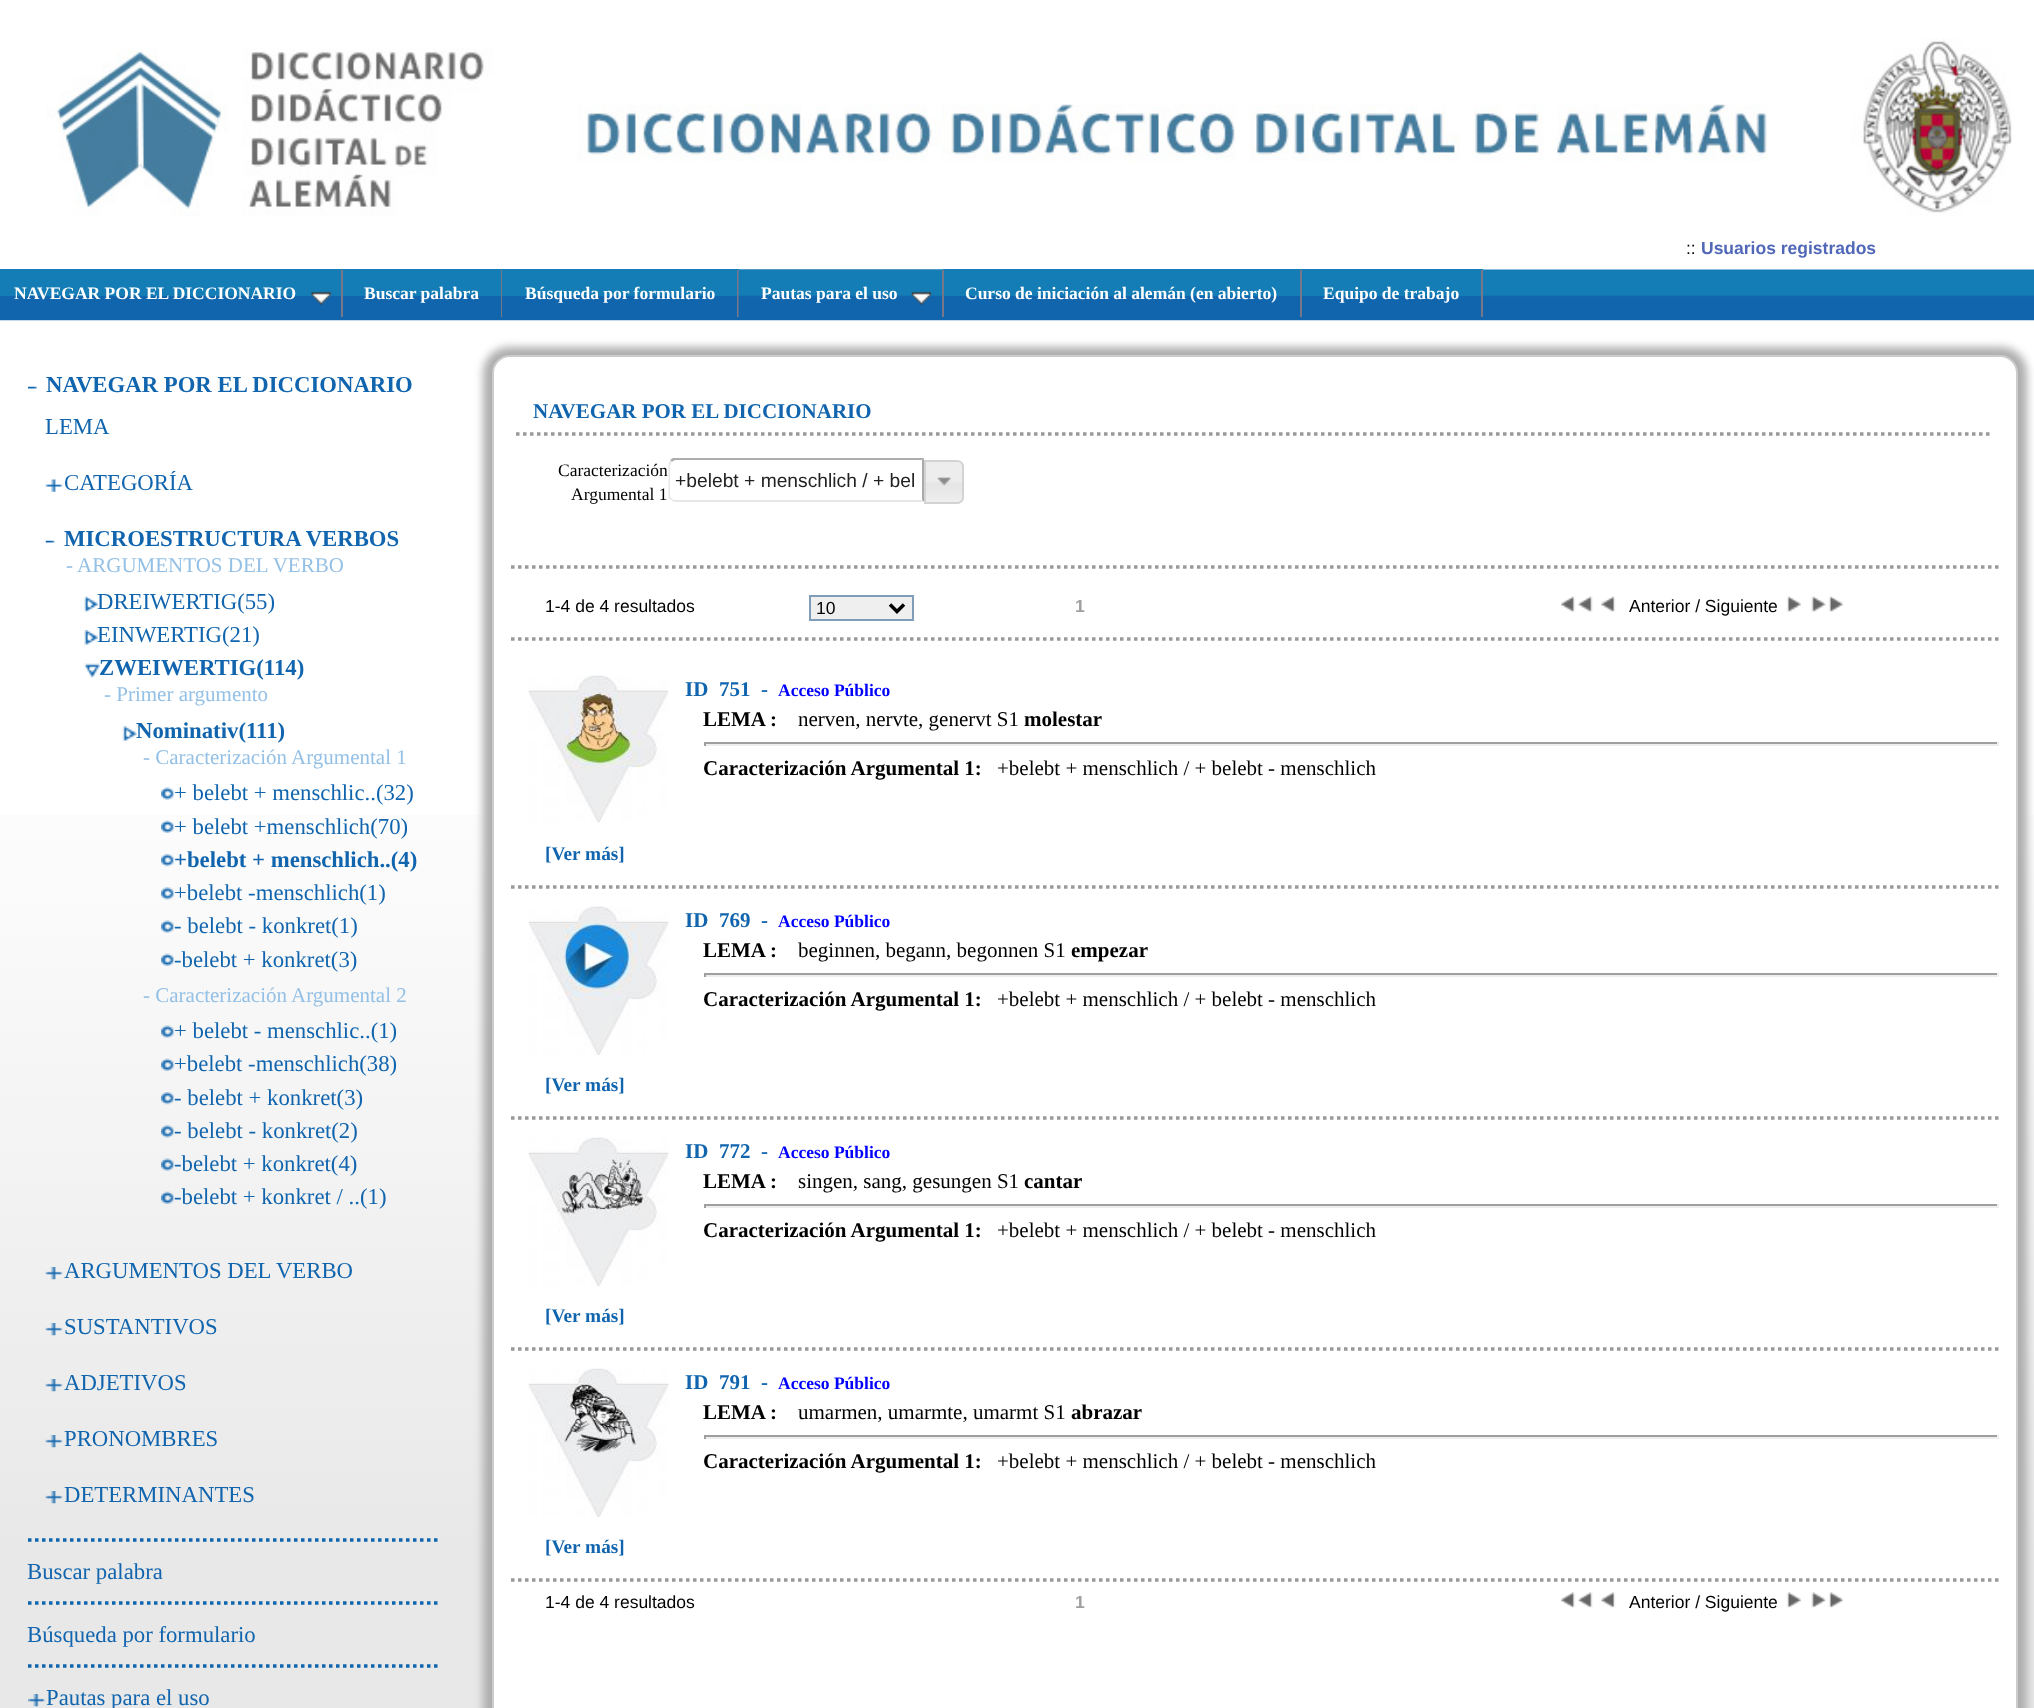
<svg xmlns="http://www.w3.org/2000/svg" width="2034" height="1708">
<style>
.a{font:17.5px Liberation Sans;fill:#000}
.b{font:bold 17.5px Liberation Sans;fill:#5168b8}
.c{font:bold 17.5px Liberation Serif;fill:#fff}
.d{font:bold 22.75px Liberation Serif;fill:#1165ae}
.e{font:22.75px Liberation Serif;fill:#1165ae}
.f{font:21px Liberation Serif;fill:#94c0e6}
.g{font:bold 21px Liberation Serif;fill:#1165ae}
.h{font:17.5px Liberation Serif;fill:#000}
.i{font:19.25px Liberation Sans;fill:#222}
.j{font:bold 17.5px Liberation Sans;fill:#9f9f9f}
.k{font:bold 17.5px Liberation Serif;fill:#00f}
.l{font:bold 21px Liberation Serif;fill:#000}
.m{font:21px Liberation Serif;fill:#000}
.n{font:bold 19.25px Liberation Serif;fill:#1165ae}
</style>
<defs>
<linearGradient id="g1" gradientUnits="userSpaceOnUse" x1="1018" y1="0" x2="1018" y2="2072"><stop offset="0.35" stop-color="#fff"/><stop offset="0.75" stop-color="#e8e8e8"/></linearGradient>
<clipPath id="clip1"><path d="M46 471h393v24H46z"/></clipPath>
</defs>
<rect width="100%" height="100%" fill="#fff"/>
<path fill="url(#g1)" d="M0 815h2034v893H0z"/>
<image href="1.png" x="46" y="38" width="1966" height="178"/>
<image href="2.png" x="0" y="269" width="2034" height="52"/>
<path fill="#1165ad" d="M0 296h341v1H0z"/>
<path fill="#147db6" d="M0 269h739v27H0z"/>
<path fill="#778" d="M341 270h2v47H341z"/>
<image href="3.png" x="311" y="291" width="20" height="14"/>
<path fill="#1165ad" d="M343 296h158v1H343z"/>
<path fill="#778" d="M501 270h1v47H501z"/>
<path fill="#1165ad" d="M502 296h235v1H502z"/>
<path fill="#778" d="M737 270h2v47H737z"/>
<image href="4.png" x="738" y="269" width="205" height="48"/>
<path fill="#147db6" d="M943 269h540v27H943z"/>
<path fill="#778" d="M942 270h2v47H942z"/>
<image href="5.png" x="911" y="291" width="20" height="14"/>
<path fill="#1165ad" d="M944 296h356v1H944z"/>
<path fill="#778" d="M1300 270h2v47H1300z"/>
<path fill="#1165ad" d="M1302 296h179v1H1302z"/>
<path fill="#778" d="M1481 270h2v47H1481z"/>
<image href="6.png" x="28" y="386" width="9" height="3"/>
<image href="7.png" x="45" y="479" width="18" height="13"/>
<image href="8.png" x="45" y="540" width="10" height="3"/>
<image href="9.png" x="84" y="596" width="14" height="17"/>
<image href="10.png" x="84" y="630" width="14" height="16"/>
<image href="11.png" x="84" y="663" width="16" height="15"/>
<image href="12.png" x="122" y="726" width="15" height="16"/>
<image href="13.png" x="161" y="787" width="14" height="13"/>
<image href="14.png" x="161" y="820" width="14" height="13"/>
<image href="15.png" x="161" y="854" width="14" height="13"/>
<image href="16.png" x="161" y="887" width="14" height="13"/>
<image href="17.png" x="161" y="920" width="14" height="13"/>
<image href="18.png" x="161" y="953" width="14" height="13"/>
<image href="19.png" x="161" y="1025" width="14" height="13"/>
<image href="20.png" x="161" y="1058" width="14" height="13"/>
<image href="21.png" x="161" y="1092" width="14" height="13"/>
<image href="22.png" x="161" y="1125" width="14" height="13"/>
<image href="23.png" x="161" y="1158" width="14" height="13"/>
<image href="24.png" x="161" y="1191" width="14" height="13"/>
<image href="25.png" x="45" y="1267" width="18" height="13"/>
<image href="26.png" x="45" y="1323" width="18" height="13"/>
<image href="27.png" x="45" y="1379" width="18" height="13"/>
<image href="28.png" x="45" y="1435" width="18" height="13"/>
<image href="29.png" x="45" y="1491" width="18" height="13"/>
<path fill="none" stroke="#1165ae" stroke-width="3.5" stroke-dasharray="3.5 3.5" d="M28 1540h411"/>
<path fill="none" stroke="#1165ae" stroke-width="3.5" stroke-dasharray="3.5 3.5" d="M28 1603h411"/>
<path fill="none" stroke="#1165ae" stroke-width="3.5" stroke-dasharray="3.5 3.5" d="M28 1666h411"/>
<image href="30.png" x="28" y="1694" width="18" height="13"/>
<rect fill="#aeaeae" filter="blur(4.5px)" x="483" y="347" width="1544" height="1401" rx="26"/>
<rect fill="#fff" stroke="#ccc" stroke-width="2" x="493" y="356" width="1524" height="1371" rx="17"/>
<path fill="none" stroke="#999" stroke-width="3.5" stroke-dasharray="3.5 3.5" d="M516 434h1477"/>
<path fill="none" stroke="#999" stroke-width="3.5" stroke-dasharray="3.5 3.5" d="M511 567h1487.5"/>
<path fill="#adadad" d="M676 460c-2 0-3 1-4 2l-2-2l3-2h251l-2 2z"/>
<path fill="#aaa" d="M924 458l-2 2v40l2 2z"/>
<path fill="#e7e7e7" d="M924 502h-248c-2 0-4-1-5-2l1-1c1 1 3 1 4 1h246z"/>
<path fill="#e7e7e7" d="M668.5 463.5l2-3l1.5 1.5c-1 1-2 2.5-2 4v29c0 1.5 1 3 2 3.5l-1.5 1.5c-1-.5-1.5-1.5-2-2.5z"/>
<image href="31.png" x="926" y="461" width="38" height="43"/>
<path fill="none" stroke="#d3d3d3" stroke-width="2" d="M925 461h32c3.5 0 6 2.5 6 6v30c0 3.5-2.5 6-6 6h-32z"/>
<image href="32.png" x="937" y="477" width="14" height="9"/>
<path fill="none" stroke="#999" stroke-width="3.5" stroke-dasharray="3.5 3.5" d="M511 639h1487.5"/>
<path fill="#efefef" stroke="#7f9db9" stroke-width="2" d="M810 596h103v24H810z"/>
<path fill="none" stroke="#000" stroke-width="3.5" d="M890 604.5l7 7l7-7"/>
<image href="33.png" x="1561" y="596" width="32" height="17"/>
<image href="34.png" x="1601" y="596" width="15" height="17"/>
<image href="35.png" x="1786" y="596" width="15" height="17"/>
<image href="36.png" x="1811" y="596" width="32" height="17"/>
<path fill="none" stroke="#999" stroke-width="3.5" stroke-dasharray="3.5 3.5" d="M511 887h1487.5"/>
<image href="37.png" x="528" y="675" width="141" height="148"/>
<path fill="#9f9f9f" d="M704 742h1295v2H704z"/>
<path fill="#eee" d="M1997 742h2v4H1997z"/>
<path fill="#eee" d="M704 744h1295v2H704z"/>
<path fill="#9f9f9f" d="M704 742h2v4H704z"/>
<path fill="none" stroke="#999" stroke-width="3.5" stroke-dasharray="3.5 3.5" d="M511 1118h1487.5"/>
<image href="38.png" x="528" y="906" width="141" height="149"/>
<path fill="#9f9f9f" d="M704 973h1295v2H704z"/>
<path fill="#eee" d="M1997 973h2v4H1997z"/>
<path fill="#eee" d="M704 975h1295v2H704z"/>
<path fill="#9f9f9f" d="M704 973h2v4H704z"/>
<path fill="none" stroke="#999" stroke-width="3.5" stroke-dasharray="3.5 3.5" d="M511 1349h1487.5"/>
<image href="39.png" x="528" y="1137" width="141" height="149"/>
<path fill="#9f9f9f" d="M704 1204h1295v2H704z"/>
<path fill="#eee" d="M1997 1204h2v4H1997z"/>
<path fill="#eee" d="M704 1206h1295v2H704z"/>
<path fill="#9f9f9f" d="M704 1204h2v4H704z"/>
<path fill="none" stroke="#999" stroke-width="3.5" stroke-dasharray="3.5 3.5" d="M511 1580h1487.5"/>
<image href="40.png" x="528" y="1368" width="141" height="149"/>
<path fill="#9f9f9f" d="M704 1435h1295v2H704z"/>
<path fill="#eee" d="M1997 1435h2v4H1997z"/>
<path fill="#eee" d="M704 1437h1295v2H704z"/>
<path fill="#9f9f9f" d="M704 1435h2v4H704z"/>
<image href="41.png" x="1561" y="1592" width="32" height="16"/>
<image href="42.png" x="1601" y="1592" width="15" height="16"/>
<image href="43.png" x="1786" y="1592" width="15" height="16"/>
<image href="44.png" x="1811" y="1592" width="32" height="16"/>
<text class="a" x="1686" y="254">::</text>
<text class="b" x="1701" y="254">Usuarios registrados</text>
<text class="c" x="14" y="299">NAVEGAR POR EL DICCIONARIO</text>
<text class="c" x="364" y="299">Buscar palabra</text>
<text class="c" x="525" y="299">Búsqueda por formulario</text>
<text class="c" x="761" y="299">Pautas para el uso</text>
<text class="c" x="965" y="299">Curso de iniciación al alemán (en abierto)</text>
<text class="c" x="1323" y="299">Equipo de trabajo</text>
<text class="d" x="46" y="392">NAVEGAR POR EL DICCIONARIO</text>
<text class="e" x="45" y="434">LEMA</text>
<g clip-path="url(#clip1)">
<text class="e" x="64" y="490">CATEGORÍA</text>
</g>
<text class="d" x="64" y="546">MICROESTRUCTURA VERBOS</text>
<text class="f" x="66" y="572">- ARGUMENTOS DEL VERBO</text>
<text class="e" x="97" y="609">DREIWERTIG(55)</text>
<text class="e" x="97" y="642">EINWERTIG(21)</text>
<text class="d" x="99" y="675">ZWEIWERTIG(114)</text>
<text class="f" x="104" y="701">- Primer argumento</text>
<text class="d" x="136" y="738">Nominativ(111)</text>
<text class="f" x="143" y="764">- Caracterización Argumental 1</text>
<text class="e" x="174" y="800">+ belebt + menschlic..(32)</text>
<text class="e" x="174" y="834">+ belebt +menschlich(70)</text>
<text class="d" x="174" y="867">+belebt + menschlich..(4)</text>
<text class="e" x="174" y="900">+belebt -menschlich(1)</text>
<text class="e" x="174" y="933">- belebt - konkret(1)</text>
<text class="e" x="174" y="967">-belebt + konkret(3)</text>
<text class="f" x="143" y="1002">- Caracterización Argumental 2</text>
<text class="e" x="174" y="1038">+ belebt - menschlic..(1)</text>
<text class="e" x="174" y="1071">+belebt -menschlich(38)</text>
<text class="e" x="174" y="1105">- belebt + konkret(3)</text>
<text class="e" x="174" y="1138">- belebt - konkret(2)</text>
<text class="e" x="174" y="1171">-belebt + konkret(4)</text>
<text class="e" x="174" y="1204">-belebt + konkret / ..(1)</text>
<text class="e" x="64" y="1278">ARGUMENTOS DEL VERBO</text>
<text class="e" x="64" y="1334">SUSTANTIVOS</text>
<text class="e" x="64" y="1390">ADJETIVOS</text>
<text class="e" x="64" y="1446">PRONOMBRES</text>
<text class="e" x="64" y="1502">DETERMINANTES</text>
<text class="e" x="27" y="1579">Buscar palabra</text>
<text class="e" x="27" y="1642">Búsqueda por formulario</text>
<text class="e" x="46" y="1705">Pautas para el uso</text>
<text class="g" x="533" y="418">NAVEGAR POR EL DICCIONARIO</text>
<text class="h" x="558" y="476">Caracterización</text>
<text class="h" x="571" y="500">Argumental 1</text>
<text class="i" x="675" y="487">+belebt + menschlich / + bel</text>
<text class="a" x="545" y="612">1-4 de 4 resultados</text>
<text class="a" x="816" y="614">10</text>
<text class="j" x="1075" y="612">1</text>
<text class="a" x="1629" y="612">Anterior / Siguiente</text>
<text class="g" x="685" y="696">ID</text>
<text class="g" x="719" y="696">751</text>
<text class="g" x="761" y="696">-</text>
<text class="k" x="778" y="696">Acceso Público</text>
<text class="l" x="703" y="726">LEMA :</text>
<text class="m" x="798" y="726">nerven, nervte, genervt S1</text>
<text class="l" x="1024" y="726">molestar</text>
<text class="l" x="703" y="775">Caracterización Argumental 1:</text>
<text class="m" x="997" y="775">+belebt + menschlich / + belebt - menschlich</text>
<text class="n" x="545" y="860">[Ver más]</text>
<text class="g" x="685" y="927">ID</text>
<text class="g" x="719" y="927">769</text>
<text class="g" x="761" y="927">-</text>
<text class="k" x="778" y="927">Acceso Público</text>
<text class="l" x="703" y="957">LEMA :</text>
<text class="m" x="798" y="957">beginnen, begann, begonnen S1</text>
<text class="l" x="1071" y="957">empezar</text>
<text class="l" x="703" y="1006">Caracterización Argumental 1:</text>
<text class="m" x="997" y="1006">+belebt + menschlich / + belebt - menschlich</text>
<text class="n" x="545" y="1091">[Ver más]</text>
<text class="g" x="685" y="1158">ID</text>
<text class="g" x="719" y="1158">772</text>
<text class="g" x="761" y="1158">-</text>
<text class="k" x="778" y="1158">Acceso Público</text>
<text class="l" x="703" y="1188">LEMA :</text>
<text class="m" x="798" y="1188">singen, sang, gesungen S1</text>
<text class="l" x="1024" y="1188">cantar</text>
<text class="l" x="703" y="1237">Caracterización Argumental 1:</text>
<text class="m" x="997" y="1237">+belebt + menschlich / + belebt - menschlich</text>
<text class="n" x="545" y="1322">[Ver más]</text>
<text class="g" x="685" y="1389">ID</text>
<text class="g" x="719" y="1389">791</text>
<text class="g" x="761" y="1389">-</text>
<text class="k" x="778" y="1389">Acceso Público</text>
<text class="l" x="703" y="1419">LEMA :</text>
<text class="m" x="798" y="1419">umarmen, umarmte, umarmt S1</text>
<text class="l" x="1071" y="1419">abrazar</text>
<text class="l" x="703" y="1468">Caracterización Argumental 1:</text>
<text class="m" x="997" y="1468">+belebt + menschlich / + belebt - menschlich</text>
<text class="n" x="545" y="1553">[Ver más]</text>
<text class="a" x="545" y="1608">1-4 de 4 resultados</text>
<text class="j" x="1075" y="1608">1</text>
<text class="a" x="1629" y="1608">Anterior / Siguiente</text>
</svg>
